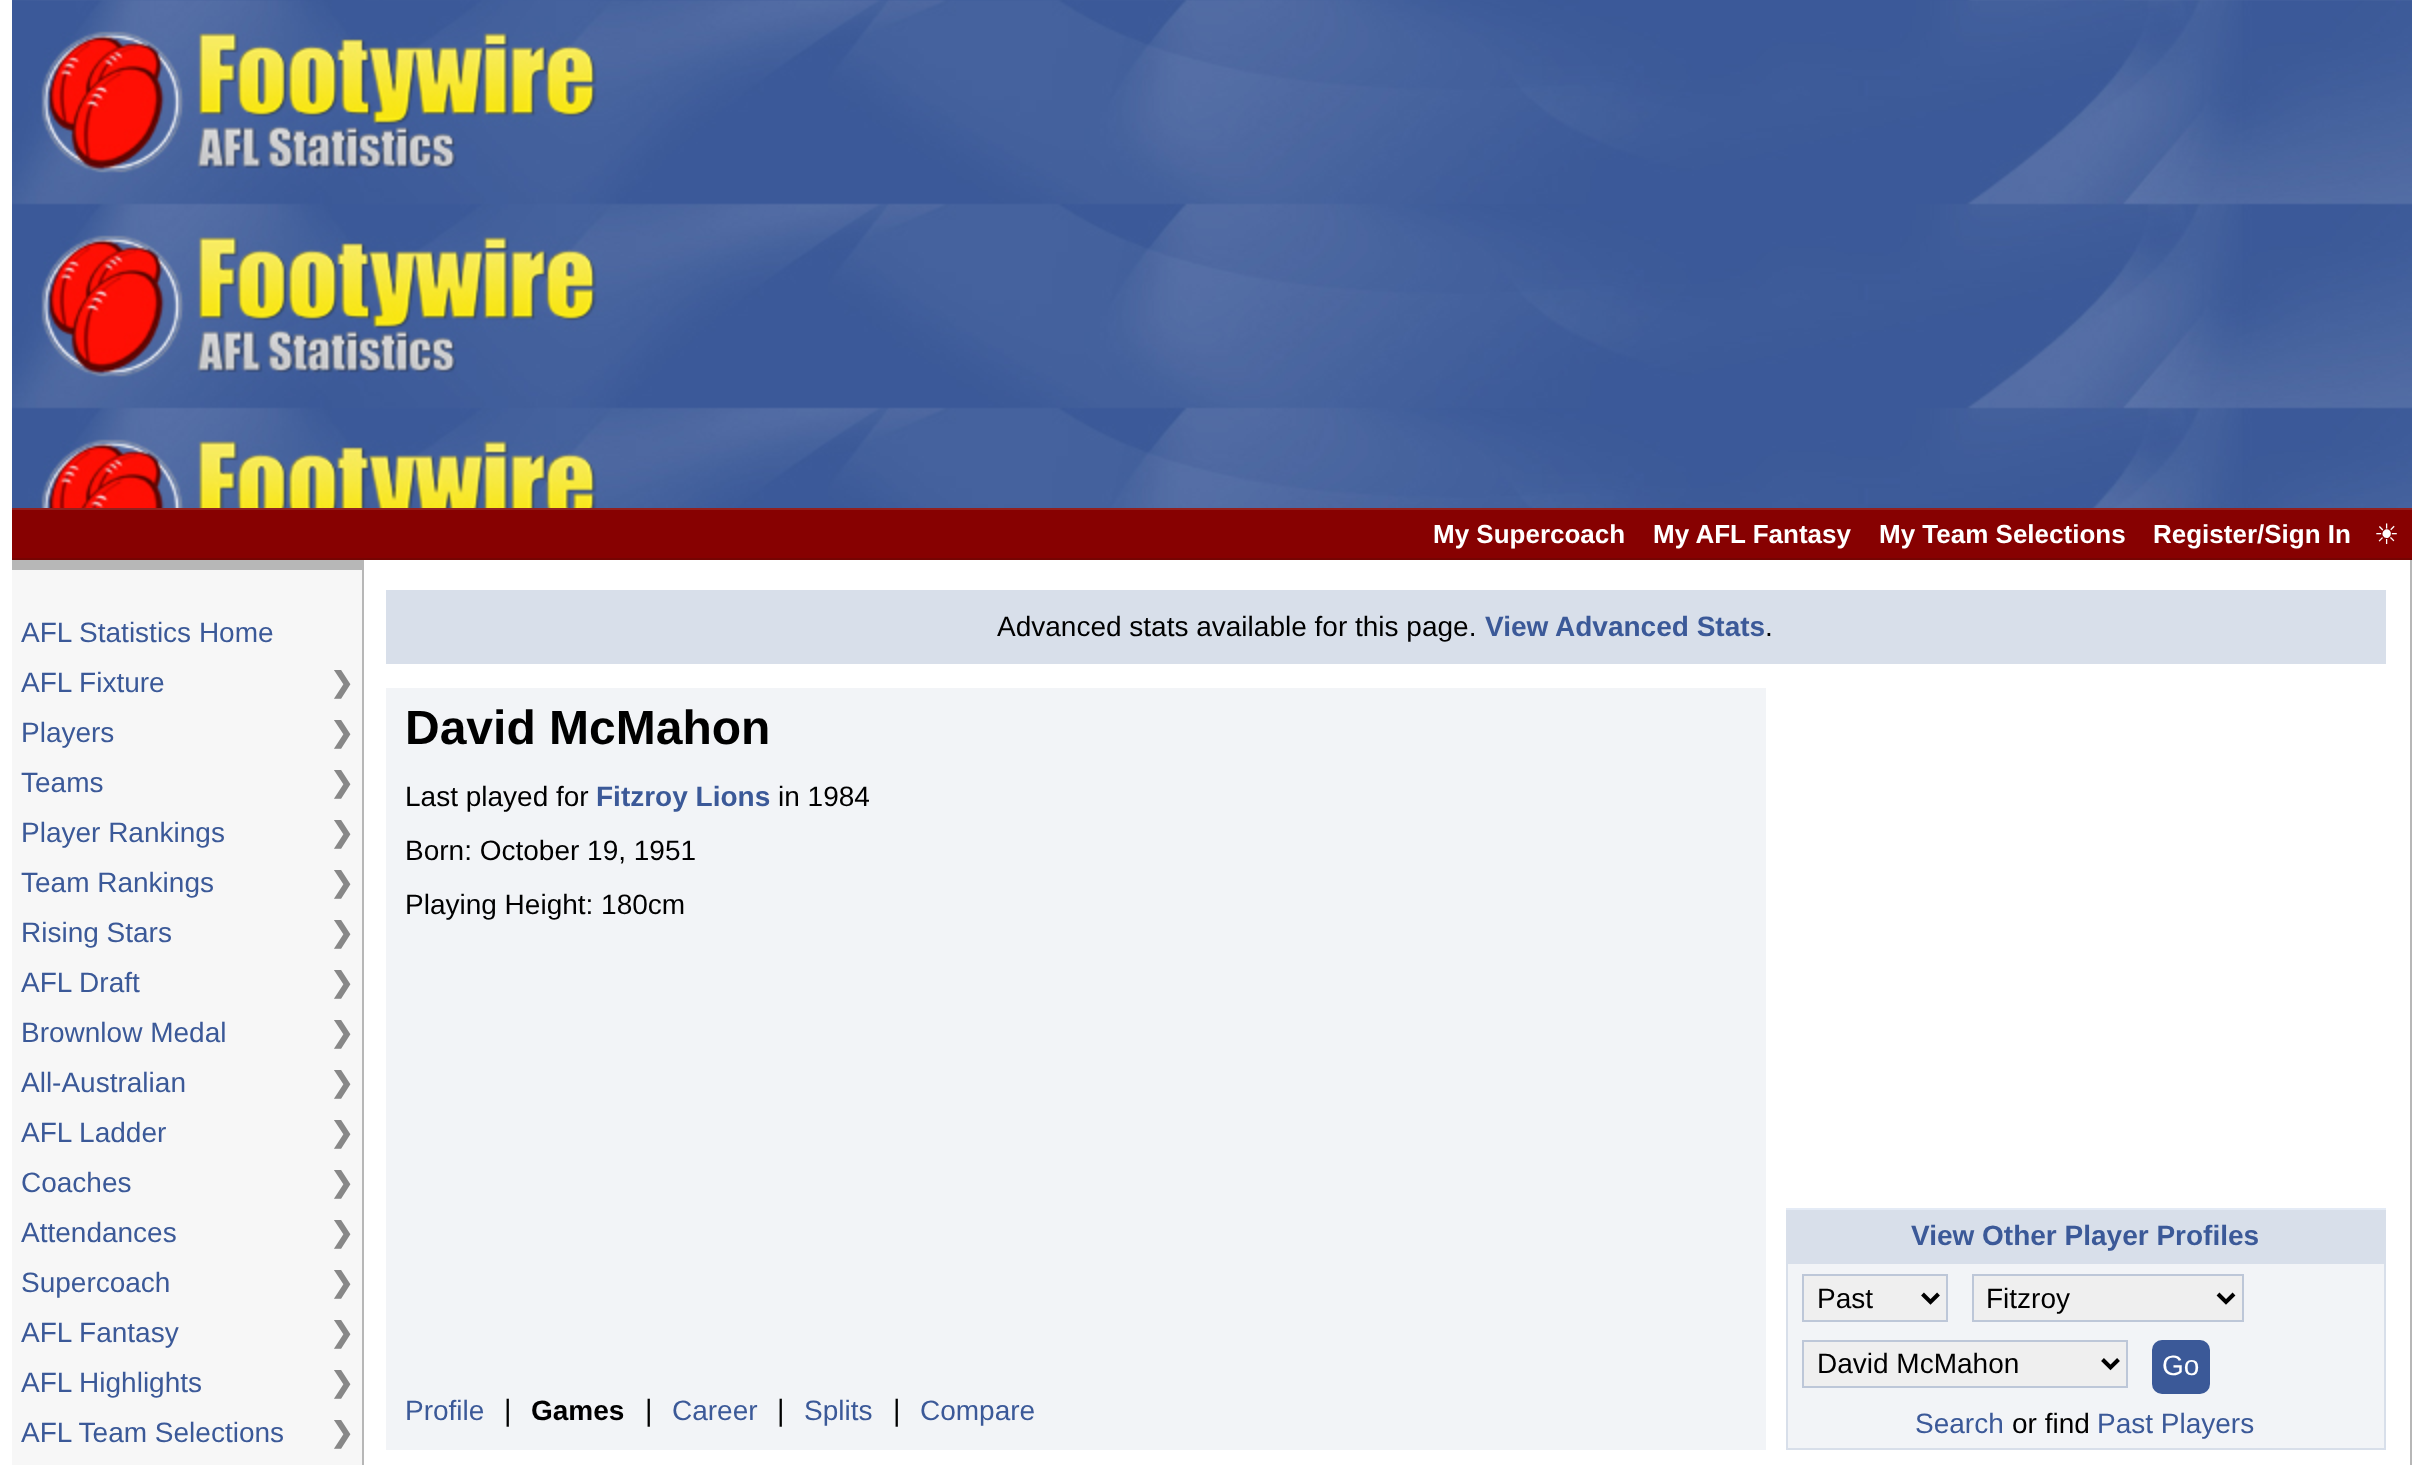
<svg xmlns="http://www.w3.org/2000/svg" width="2422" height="1465">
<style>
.a{font:bold 26px Liberation Sans;fill:#fff}
.b{font:28px DejaVu Sans;fill:#fff}
.c{font:28px Liberation Sans;fill:#3b5998}
.d{font:bold 28px DejaVu Sans;fill:#888}
.e{font:28px Liberation Sans;fill:#000}
.f{font:bold 28px Liberation Sans;fill:#3b5998}
.g{font:bold 48px Liberation Sans;fill:#000}
.h{font:28px Liberation Sans;fill:#fff}
.i{font:28px DejaVu Sans;fill:#000}
.j{font:bold 28px Liberation Sans;fill:#000}
</style>
<rect width="100%" height="100%" fill="#fff"/>
<image href="1.png" x="12" y="0" width="2400" height="508"/>
<path fill="#870101" d="M12 510h2400v48H12z"/>
<path fill="#92201e" d="M12 508h2400v2H12z"/>
<path fill="#760402" d="M12 558h2400v2H12z"/>
<path fill="#f7f7f7" d="M12 570h350v895H12z"/>
<path fill="#b7b7b7" d="M12 560h350v10H12z"/>
<path fill="#b7b7b7" d="M362 560h2v905H362z"/>
<path fill="#d8dfea" d="M386 590h2000v74H386z"/>
<path fill="#f2f4f7" d="M386 688h1380v762H386z"/>
<path fill="#d8dfea" d="M1786 1210h600v54H1786z"/>
<path fill="#e4ebf6" d="M1786 1208h600v2H1786z"/>
<path fill="#d8dfea" d="M1786 1264h2v184H1786z"/>
<path fill="#f2f4f7" d="M1788 1264h596v184H1788z"/>
<path fill="#efefef" stroke="#bdc7d8" stroke-width="2" d="M1803 1275h144v46H1803z"/>
<path fill="none" stroke="#000" stroke-width="4" d="M1922.5 1294l8 8l8-8"/>
<path fill="#efefef" stroke="#bdc7d8" stroke-width="2" d="M1973 1275h270v46H1973z"/>
<path fill="none" stroke="#000" stroke-width="4" d="M2218 1294l8 8l8-8"/>
<path fill="#efefef" stroke="#bdc7d8" stroke-width="2" d="M1803 1341h324v46H1803z"/>
<path fill="none" stroke="#000" stroke-width="4" d="M2102.5 1359.5l8 8l8-8"/>
<rect fill="#3b5998" stroke="#3b5998" stroke-width="2" x="2153" y="1341" width="56" height="52" rx="9"/>
<path fill="#d8dfea" d="M2384 1264h2v184H2384z"/>
<path fill="#d8dfea" d="M1786 1448h600v2H1786z"/>
<path fill="#b7b7b7" d="M2410 560h2v905H2410z"/>
<text class="a" x="1433" y="543">My Supercoach</text>
<text class="a" x="1653" y="543">My AFL Fantasy</text>
<text class="a" x="1879" y="543">My Team Selections</text>
<text class="a" x="2153" y="543">Register/Sign In</text>
<text class="b" x="2374" y="544">☀</text>
<text class="c" x="21" y="642">AFL Statistics Home</text>
<text class="c" x="21" y="692">AFL Fixture</text>
<text class="d" x="330" y="692">❯</text>
<text class="c" x="21" y="742">Players</text>
<text class="d" x="330" y="742">❯</text>
<text class="c" x="21" y="792">Teams</text>
<text class="d" x="330" y="792">❯</text>
<text class="c" x="21" y="842">Player Rankings</text>
<text class="d" x="330" y="842">❯</text>
<text class="c" x="21" y="892">Team Rankings</text>
<text class="d" x="330" y="892">❯</text>
<text class="c" x="21" y="942">Rising Stars</text>
<text class="d" x="330" y="942">❯</text>
<text class="c" x="21" y="992">AFL Draft</text>
<text class="d" x="330" y="992">❯</text>
<text class="c" x="21" y="1042">Brownlow Medal</text>
<text class="d" x="330" y="1042">❯</text>
<text class="c" x="21" y="1092">All-Australian</text>
<text class="d" x="330" y="1092">❯</text>
<text class="c" x="21" y="1142">AFL Ladder</text>
<text class="d" x="330" y="1142">❯</text>
<text class="c" x="21" y="1192">Coaches</text>
<text class="d" x="330" y="1192">❯</text>
<text class="c" x="21" y="1242">Attendances</text>
<text class="d" x="330" y="1242">❯</text>
<text class="c" x="21" y="1292">Supercoach</text>
<text class="d" x="330" y="1292">❯</text>
<text class="c" x="21" y="1342">AFL Fantasy</text>
<text class="d" x="330" y="1342">❯</text>
<text class="c" x="21" y="1392">AFL Highlights</text>
<text class="d" x="330" y="1392">❯</text>
<text class="c" x="21" y="1442">AFL Team Selections</text>
<text class="d" x="330" y="1442">❯</text>
<text class="e" x="997" y="636">Advanced stats available for this page.</text>
<text class="f" x="1485" y="636">View Advanced Stats</text>
<text class="e" x="1765" y="636">.</text>
<text class="g" x="405" y="744">David McMahon</text>
<text class="e" x="405" y="806">Last played for</text>
<text class="f" x="596" y="806">Fitzroy Lions</text>
<text class="e" x="778" y="806">in 1984</text>
<text class="e" x="405" y="860">Born: October 19, 1951</text>
<text class="e" x="405" y="914">Playing Height: 180cm</text>
<text class="f" x="1911" y="1245">View Other Player Profiles</text>
<text class="e" x="1817" y="1308">Past</text>
<text class="e" x="1986" y="1308">Fitzroy</text>
<text class="e" x="1817" y="1373">David McMahon</text>
<text class="h" x="2162" y="1375">Go</text>
<text class="c" x="1915" y="1433">Search</text>
<text class="e" x="2012" y="1433">or find</text>
<text class="c" x="2097" y="1433">Past Players</text>
<text class="c" x="405" y="1420">Profile</text>
<text class="i" x="496" y="1420">❘</text>
<text class="j" x="531" y="1420">Games</text>
<text class="i" x="637" y="1420">❘</text>
<text class="c" x="672" y="1420">Career</text>
<text class="i" x="769" y="1420">❘</text>
<text class="c" x="804" y="1420">Splits</text>
<text class="i" x="885" y="1420">❘</text>
<text class="c" x="920" y="1420">Compare</text>
</svg>
